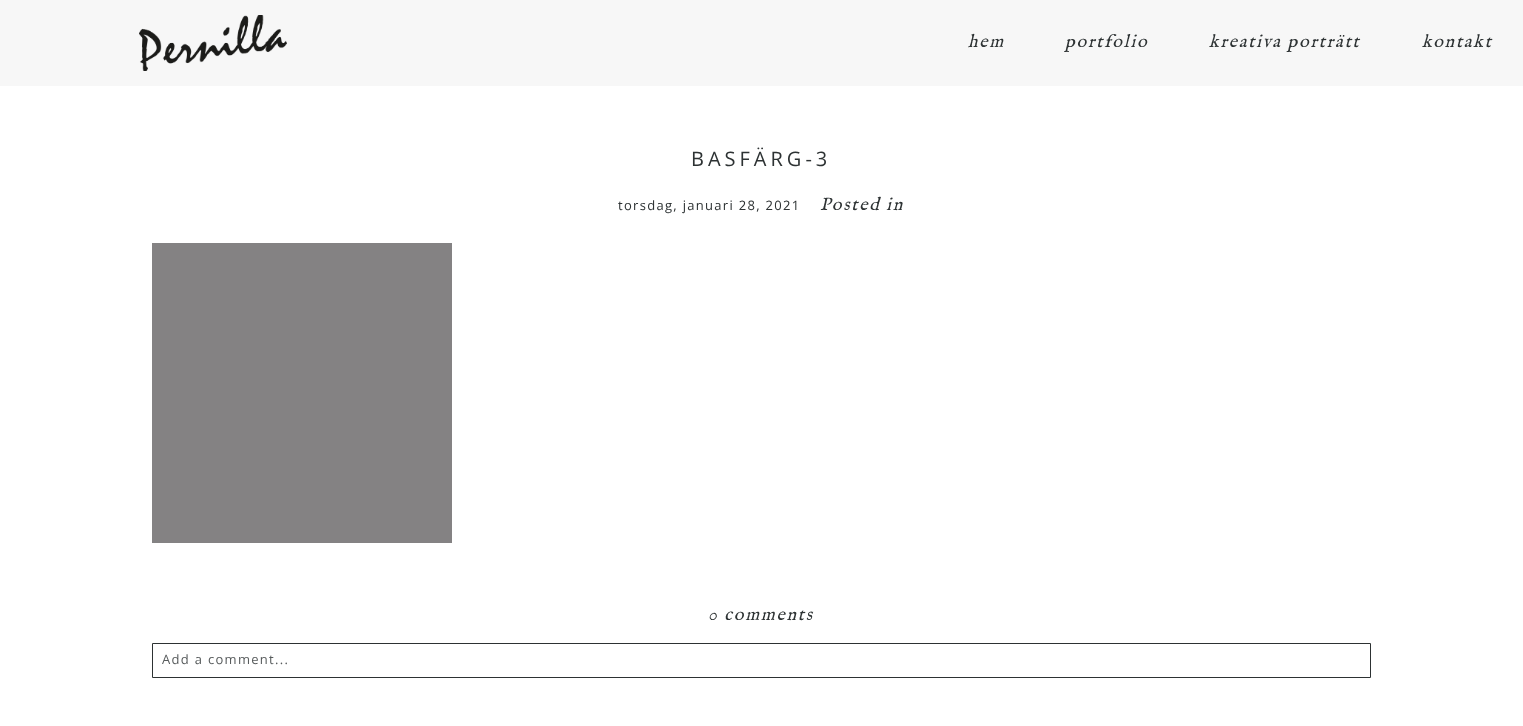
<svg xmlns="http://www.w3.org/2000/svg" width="1523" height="726">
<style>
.a{font:italic 18px IM FELL English;letter-spacing:1.75px;fill:#2d3233}
.b{font:20px Open Sans;letter-spacing:4px;fill:#2d3233}
.c{font:13px Open Sans;letter-spacing:1.3px;fill:#2d3233}
.d{font:13px Open Sans;letter-spacing:1.3px;fill:#575b5c}
</style>
<rect width="100%" height="100%" fill="#fff"/>
<path fill="#f7f7f7" d="M0 0h1523v86H0z"/>
<image href="1.png" x="139" y="15" width="148" height="56"/>
<path fill="#848283" d="M152 243h300v300H152z"/>
<path fill="none" stroke="#2d3233" d="M152.5 643.5h1218v34H152.5z"/>
<text class="a" x="968" y="47">hem</text>
<text class="a" x="1065" y="47">portfolio</text>
<text class="a" x="1209" y="47">kreativa porträtt</text>
<text class="a" x="1422" y="47">kontakt</text>
<text class="b" x="691" y="166">BASFÄRG-3</text>
<text class="c" x="618" y="210">torsdag, januari 28, 2021</text>
<text class="a" x="820" y="210">Posted in</text>
<text class="a" x="708" y="620">0 comments</text>
<text class="d" x="162" y="664">Add a comment...</text>
</svg>
